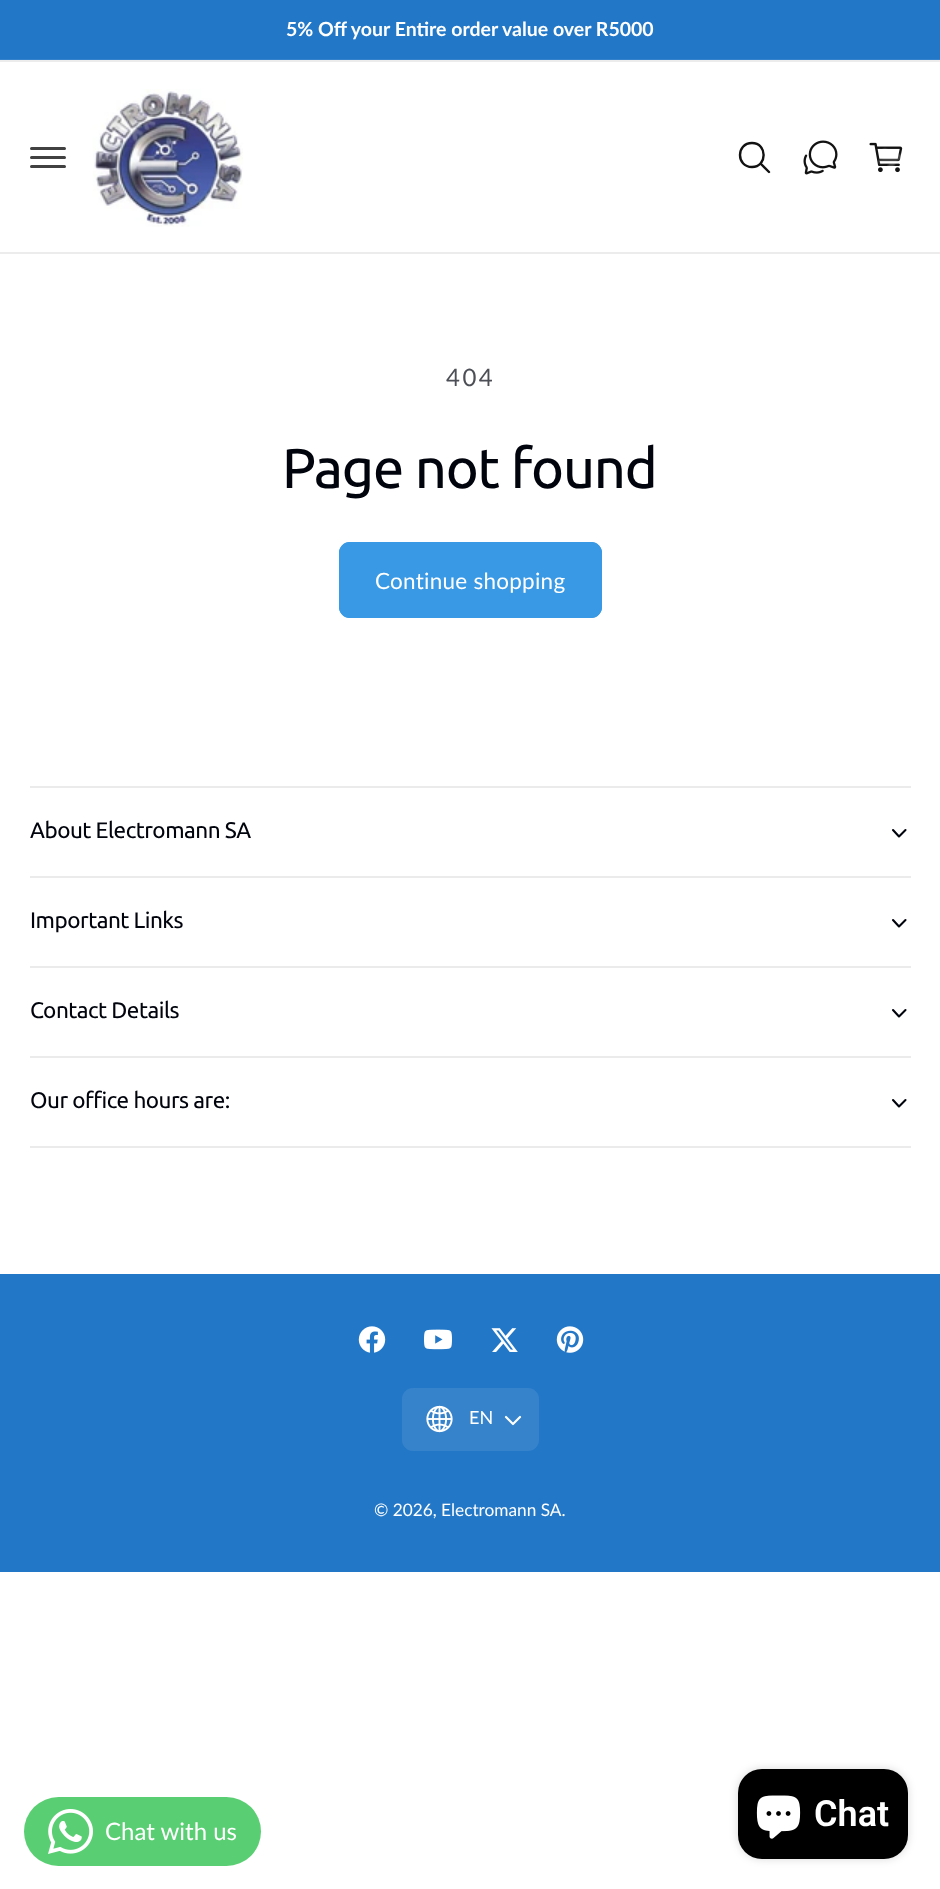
<svg xmlns="http://www.w3.org/2000/svg" width="940" height="1889">
<style>
.a{font:bold 19.5px Lato;fill:#fff}
.b{font:24px Lato;letter-spacing:2.5px;fill:#4d4f56}
.c{font:56px Ubuntu;letter-spacing:-1.2px;fill:#01030d}
.d{font:22.5px Lato;letter-spacing:0.25px;fill:#fff}
.e{font:22.5px Ubuntu;letter-spacing:-0.5px;fill:#01030d}
.f{font:18px Lato;fill:#fff}
.g{font:17.25px Lato;fill:#fff}
.h{font:600 36px Roboto;fill:#fff}
.i{font:24px Lato;fill:#fff}
</style>
<rect width="100%" height="100%" fill="#fff"/>
<path fill="#2277c7" d="M0 0h940v59H0z"/>
<path fill="#3482cb" d="M0 59h940v1H0z"/>
<path fill="#ececec" d="M0 60h940v2H0z"/>
<path fill="#ececec" d="M0 252h940v2H0z"/>
<image href="1.png" x="93" y="89" width="150" height="138"/>
<path fill="none" stroke="#121212" stroke-width="2.4" d="M752 143c-16 0-16 24 0 24c15.5 0 15.5-24 0-24z"/>
<path fill="none" stroke="#121212" stroke-width="2.4" stroke-linecap="round" d="M761 164l8 8"/>
<image href="3.png" x="803" y="140" width="35" height="35"/>
<image href="4.png" x="869" y="142" width="34" height="31"/>
<image href="2.png" x="97" y="98" width="804" height="123"/>
<path fill="none" stroke="#414141" stroke-width="3" stroke-linecap="round" d="M31.5 148.5h33m-33 9h33m-33 9h33"/>
<rect fill="#3999e5" x="339" y="542" width="263" height="76" rx="11"/>
<rect fill="none" stroke="#3999e5" stroke-width="2" x="340" y="543" width="261" height="74" rx="10"/>
<path fill="#ebebec" d="M30 786h881v2H30z"/>
<path fill="#ebebec" d="M30 876h881v2H30z"/>
<path fill="none" stroke="#01030d" stroke-width="2.1" stroke-linecap="round" stroke-linejoin="round" d="M893 830l6 6.5l6.5-6.5"/>
<path fill="#ebebec" d="M30 966h881v2H30z"/>
<path fill="none" stroke="#01030d" stroke-width="2.1" stroke-linecap="round" stroke-linejoin="round" d="M893 920l6 6.5l6.5-6.5"/>
<path fill="#ebebec" d="M30 1056h881v2H30z"/>
<path fill="none" stroke="#01030d" stroke-width="2.1" stroke-linecap="round" stroke-linejoin="round" d="M893 1010l6 6.5l6.5-6.5"/>
<path fill="#ebebec" d="M30 1146h881v2H30z"/>
<path fill="none" stroke="#01030d" stroke-width="2.1" stroke-linecap="round" stroke-linejoin="round" d="M893 1100l6 6.5l6.5-6.5"/>
<path fill="#2277c7" d="M0 1274h940v298H0z"/>
<image href="5.png" x="358" y="1326" width="28" height="27"/>
<image href="6.png" x="424" y="1329" width="28" height="21"/>
<image href="7.png" x="491" y="1328" width="27" height="24"/>
<image href="8.png" x="556" y="1326" width="28" height="27"/>
<rect fill="#3683cc" x="402" y="1388" width="137" height="63" rx="11"/>
<image href="9.png" x="426" y="1405" width="27" height="28"/>
<path fill="none" stroke="#fff" stroke-width="2.2" stroke-linecap="round" stroke-linejoin="round" d="M506 1417l7 7l7-7"/>
<rect fill="#00000026" filter="blur(4px)" x="738" y="1769" width="170" height="90" rx="24"/>
<rect fill="#000" x="738" y="1769" width="170" height="90" rx="24"/>
<image href="10.png" x="756" y="1795" width="45" height="44"/>
<rect fill="#59ce72" x="24" y="1797" width="237" height="69" rx="34.5"/>
<image href="11.png" x="48" y="1809" width="45" height="45"/>
<text class="a" x="286" y="36">5% Off your Entire order value over R5000</text>
<text class="b" x="446" y="386">404</text>
<text class="c" x="282" y="488">Page not found</text>
<text class="d" x="375" y="589">Continue shopping</text>
<text class="e" x="30" y="838">About Electromann SA</text>
<text class="e" x="30" y="928">Important Links</text>
<text class="e" x="30" y="1018">Contact Details</text>
<text class="e" x="30" y="1108">Our office hours are:</text>
<text class="f" x="469" y="1424">EN</text>
<text class="g" x="374" y="1516">© 2026, Electromann SA.</text>
<text class="h" x="814" y="1826">Chat</text>
<text class="i" x="105" y="1840">Chat with us</text>
</svg>
